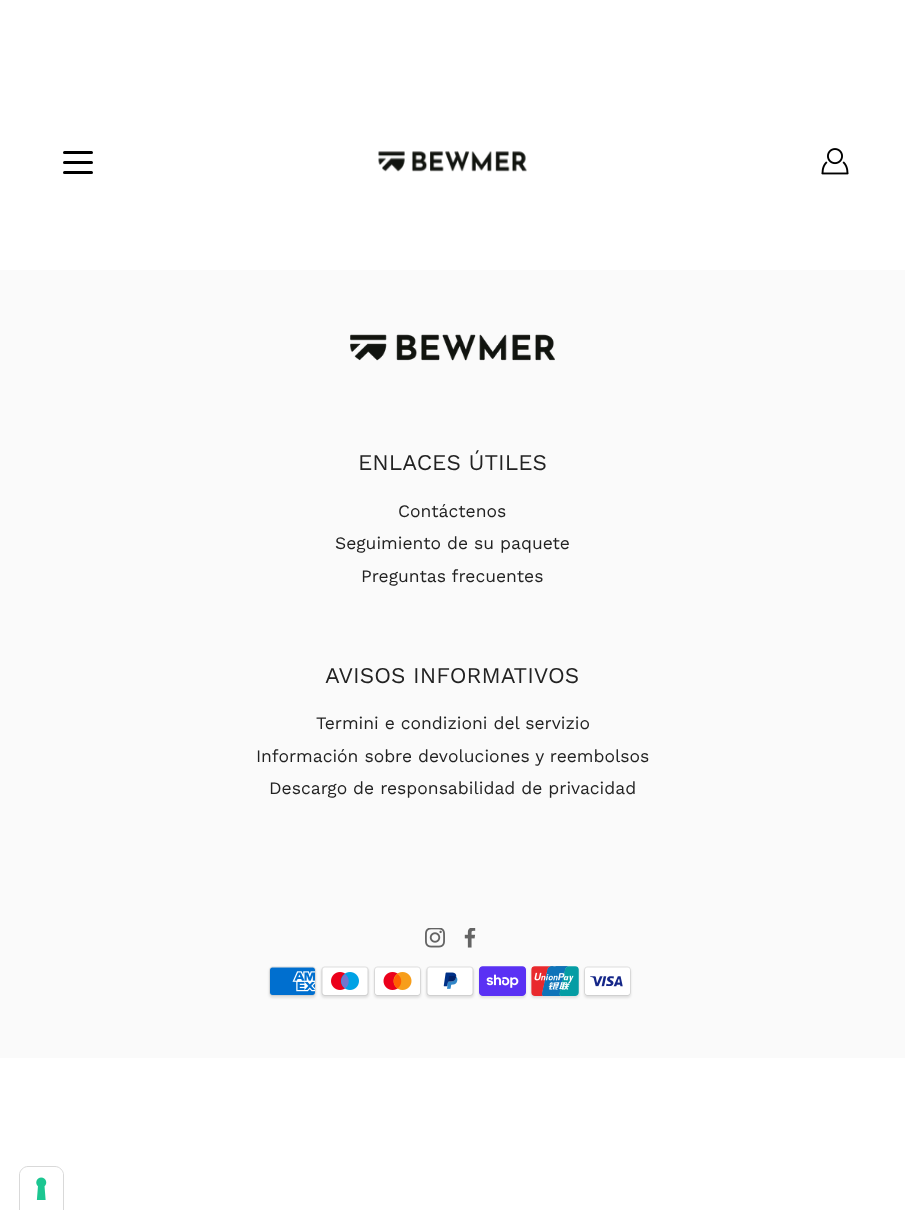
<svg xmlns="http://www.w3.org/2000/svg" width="905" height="1210">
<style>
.a{font:22.5px Work Sans;fill:#222}
.b{font:17.5px Work Sans;fill:#222}
</style>
<rect width="100%" height="100%" fill="#fff"/>
<rect fill="#000" x="63" y="161" width="30" height="3" rx="1.5"/>
<rect fill="#000" x="63" y="151" width="30" height="3" rx="1.5"/>
<rect fill="#000" x="63" y="171" width="30" height="3" rx="1.5"/>
<image href="1.png" x="821" y="148" width="28" height="27"/>
<image href="2.png" x="378" y="151" width="149" height="21"/>
<path fill="#fafafa" d="M0 270h905v788H0z"/>
<image href="3.png" x="350" y="334" width="205" height="27"/>
<image href="4.png" x="425" y="928" width="20" height="20"/>
<image href="5.png" x="464" y="928" width="12" height="20"/>
<rect fill="#0000001a" filter="blur(1px)" x="269" y="968" width="47" height="30" rx="4"/>
<image href="6.png" x="269" y="966" width="47" height="30"/>
<rect fill="#0000001a" filter="blur(1px)" x="321" y="968" width="48" height="30" rx="4"/>
<image href="7.png" x="321" y="966" width="48" height="30"/>
<rect fill="#0000001a" filter="blur(1px)" x="374" y="968" width="47" height="30" rx="4"/>
<image href="8.png" x="374" y="966" width="47" height="30"/>
<rect fill="#0000001a" filter="blur(1px)" x="426" y="968" width="48" height="30" rx="4"/>
<image href="9.png" x="426" y="966" width="48" height="30"/>
<rect fill="#0000001a" filter="blur(1px)" x="479" y="968" width="47" height="30" rx="4"/>
<image href="10.png" x="479" y="966" width="47" height="30"/>
<rect fill="#0000001a" filter="blur(1px)" x="531" y="968" width="48" height="30" rx="4"/>
<image href="11.png" x="531" y="966" width="48" height="30"/>
<rect fill="#0000001a" filter="blur(1px)" x="584" y="968" width="47" height="30" rx="4"/>
<image href="12.png" x="584" y="966" width="47" height="30"/>
<path fill="none" stroke="#d9d9d9" d="M28 1166.5h27c4.5 0 8.5 4 8.5 8.5v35.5h-44v-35.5c0-4.5 4-8.5 8.5-8.5z"/>
<path fill="#fff" d="M28 1168h27c4.5 0 8 3.5 8 8v34h-43v-34c0-4.5 3.5-8 8-8z"/>
<image href="13.png" x="36" y="1177" width="11" height="23"/>
<text class="a" x="358" y="470">ENLACES ÚTILES</text>
<text class="b" x="398" y="517">Contáctenos</text>
<text class="b" x="335" y="549">Seguimiento de su paquete</text>
<text class="b" x="361" y="582">Preguntas frecuentes</text>
<text class="a" x="325" y="683">AVISOS INFORMATIVOS</text>
<text class="b" x="316" y="729">Termini e condizioni del servizio</text>
<text class="b" x="256" y="762">Información sobre devoluciones y reembolsos</text>
<text class="b" x="269" y="794">Descargo de responsabilidad de privacidad</text>
</svg>
